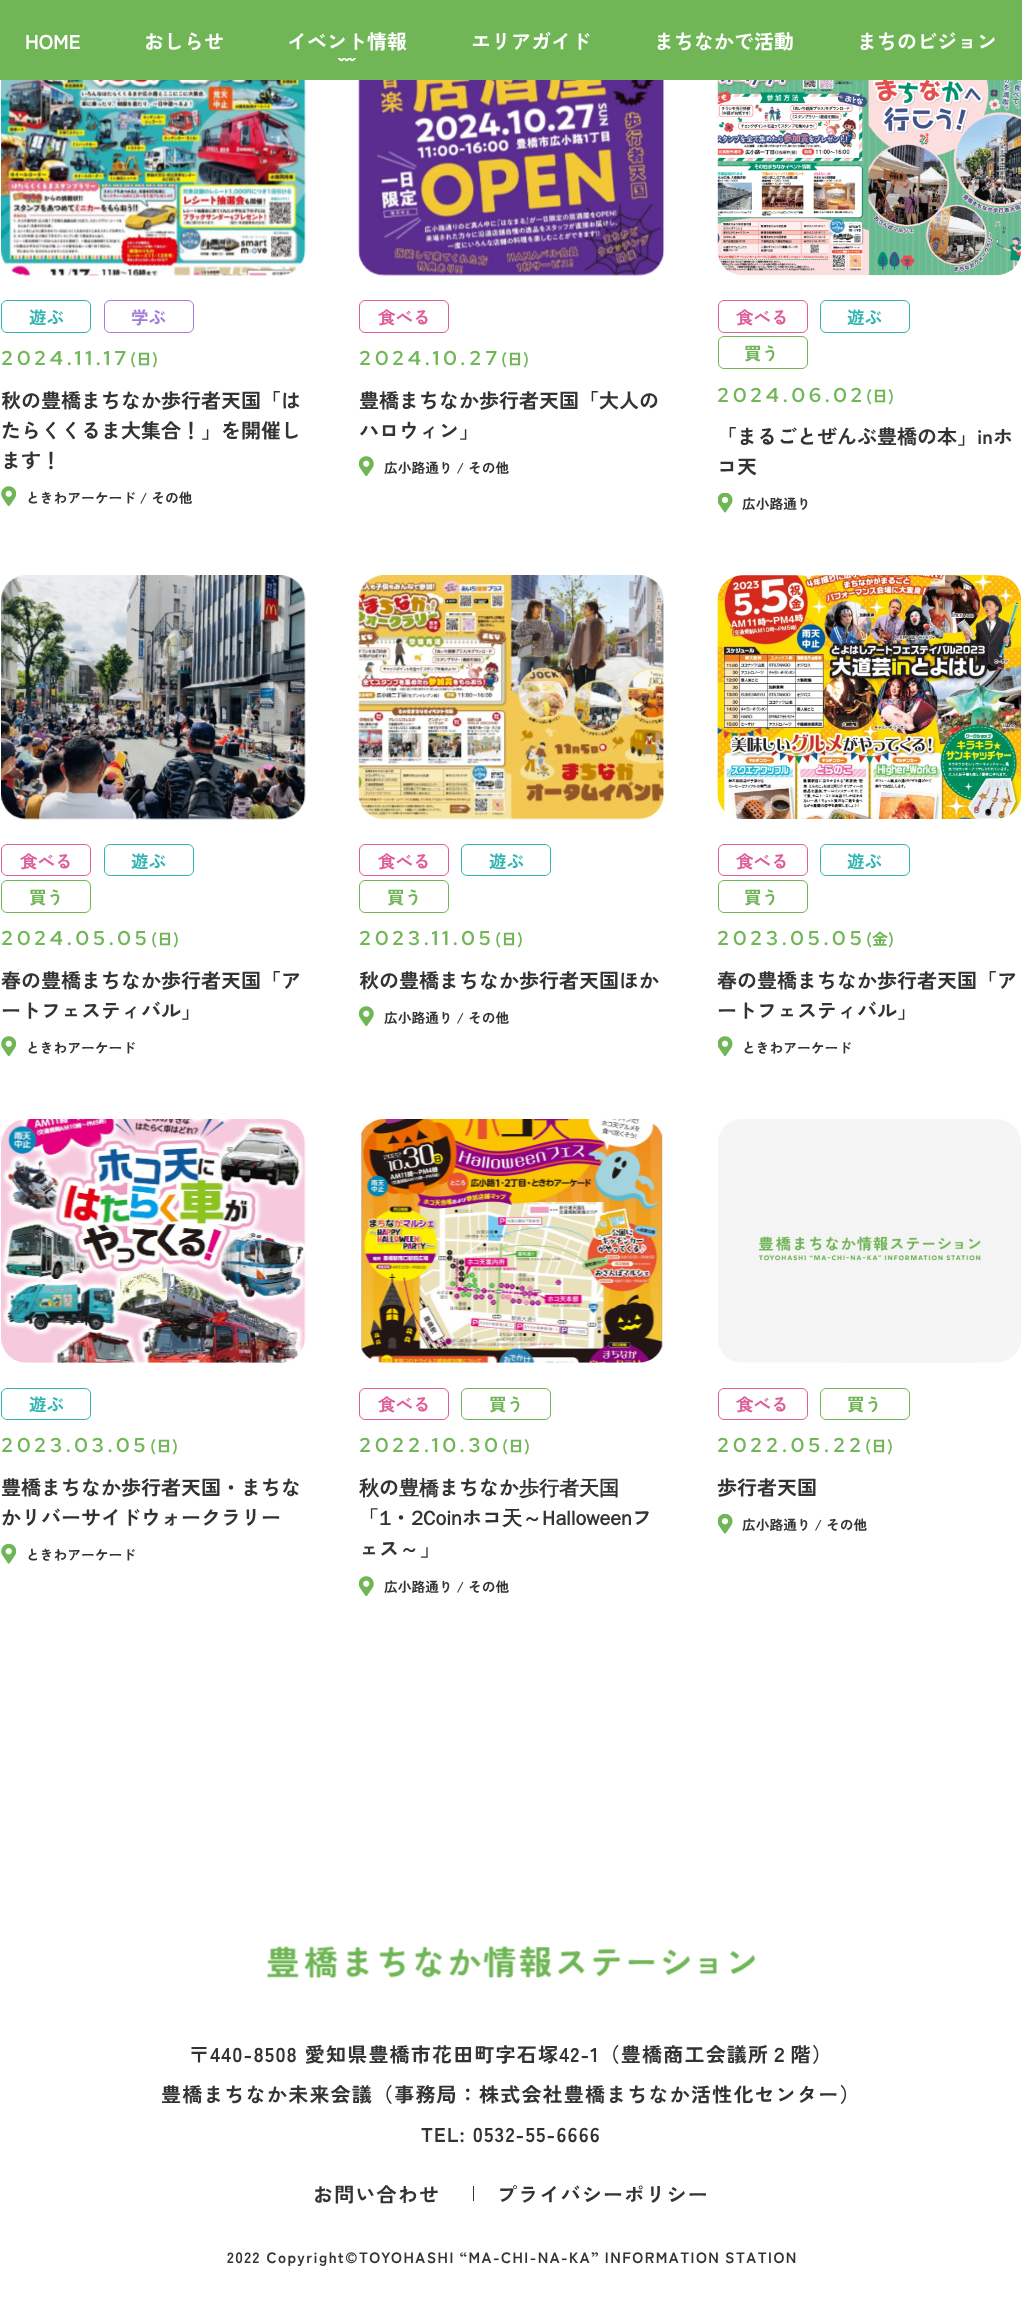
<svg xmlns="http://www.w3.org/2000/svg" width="1022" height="2304">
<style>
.a{font:bold 20px Zen Kaku Gothic New;fill:#fff}
.b{font:bold 17.5px Zen Kaku Gothic New;fill:#33b5b1}
.c{font:bold 17.5px Zen Kaku Gothic New;fill:#a47cd9}
.d{font:bold 20px Red Hat Display;letter-spacing:4px;fill:#70b657}
.e{font:bold 16px Zen Kaku Gothic New;fill:#70b657}
.f{font:bold 20px Zen Kaku Gothic New;fill:#333}
.g{font:bold 13.75px Zen Kaku Gothic New;fill:#333}
.h{font:bold 17.5px Zen Kaku Gothic New;fill:#de5e9b}
.i{font:bold 17.5px Zen Kaku Gothic New;fill:#70b657}
.j{font:bold 20px WenQuanYi Zen Hei;fill:#333}
.k{font:bold 20px Zen Kaku Gothic New;letter-spacing:1.2px;fill:#333}
.l{font:bold 15px Zen Kaku Gothic New;letter-spacing:1.5px;fill:#333}
</style>
<rect width="100%" height="100%" fill="#fff"/>
<path fill="#70b657" d="M0 0h1022v80H0z"/>
<image href="1.png" x="338" y="58" width="18" height="4"/>
<image href="2.png" x="1" y="80" width="305" height="196"/>
<rect fill="none" stroke="#33b5b1" x="1.5" y="300.5" width="89" height="32" rx="5.5"/>
<rect fill="none" stroke="#a47cd9" x="104.5" y="300.5" width="89" height="32" rx="5.5"/>
<image href="3.png" x="1" y="486" width="15" height="20"/>
<image href="4.png" x="358" y="80" width="306" height="196"/>
<rect fill="none" stroke="#de5e9b" x="359.5" y="300.5" width="89" height="32" rx="5.5"/>
<image href="5.png" x="359" y="456" width="15" height="20"/>
<image href="6.png" x="717" y="80" width="304" height="196"/>
<rect fill="none" stroke="#de5e9b" x="718.5" y="300.5" width="89" height="32" rx="5.5"/>
<rect fill="none" stroke="#33b5b1" x="820.5" y="300.5" width="89" height="32" rx="5.5"/>
<rect fill="none" stroke="#70b657" x="718.5" y="336.5" width="89" height="32" rx="5.5"/>
<image href="7.png" x="718" y="493" width="15" height="20"/>
<image href="8.png" x="1" y="575" width="305" height="245"/>
<rect fill="none" stroke="#de5e9b" x="1.5" y="844.5" width="89" height="31" rx="5.5"/>
<rect fill="none" stroke="#33b5b1" x="104.5" y="844.5" width="89" height="31" rx="5.5"/>
<rect fill="none" stroke="#70b657" x="1.5" y="880.5" width="89" height="32" rx="5.5"/>
<image href="3.png" x="1" y="1036" width="15" height="20"/>
<image href="9.png" x="358" y="575" width="306" height="245"/>
<rect fill="none" stroke="#de5e9b" x="359.5" y="844.5" width="89" height="31" rx="5.5"/>
<rect fill="none" stroke="#33b5b1" x="461.5" y="844.5" width="89" height="31" rx="5.5"/>
<rect fill="none" stroke="#70b657" x="359.5" y="880.5" width="89" height="32" rx="5.5"/>
<image href="5.png" x="359" y="1006" width="15" height="20"/>
<image href="10.png" x="717" y="575" width="305" height="244"/>
<rect fill="none" stroke="#de5e9b" x="718.5" y="844.5" width="89" height="31" rx="5.5"/>
<rect fill="none" stroke="#33b5b1" x="820.5" y="844.5" width="89" height="31" rx="5.5"/>
<rect fill="none" stroke="#70b657" x="718.5" y="880.5" width="89" height="32" rx="5.5"/>
<image href="11.png" x="718" y="1036" width="15" height="20"/>
<image href="12.png" x="1" y="1119" width="305" height="244"/>
<rect fill="none" stroke="#33b5b1" x="1.5" y="1388.5" width="89" height="31" rx="5.5"/>
<image href="13.png" x="1" y="1544" width="15" height="20"/>
<image href="14.png" x="361" y="1119" width="302" height="244"/>
<rect fill="none" stroke="#de5e9b" x="359.5" y="1388.5" width="89" height="31" rx="5.5"/>
<rect fill="none" stroke="#70b657" x="461.5" y="1388.5" width="89" height="31" rx="5.5"/>
<image href="5.png" x="359" y="1576" width="15" height="20"/>
<image href="15.png" x="718" y="1119" width="303" height="244"/>
<rect fill="none" stroke="#de5e9b" x="718.5" y="1388.5" width="89" height="31" rx="5.5"/>
<rect fill="none" stroke="#70b657" x="820.5" y="1388.5" width="89" height="31" rx="5.5"/>
<image href="16.png" x="718" y="1514" width="15" height="20"/>
<image href="17.png" x="267" y="1946" width="489" height="33"/>
<path fill="#333" d="M473 2186h1v15H473z"/>
<text class="a" x="25" y="49">HOME</text>
<text class="a" x="144" y="49">おしらせ</text>
<text class="a" x="287" y="49">イベント情報</text>
<text class="a" x="471" y="49">エリアガイド</text>
<text class="a" x="654" y="49">まちなかで活動</text>
<text class="a" x="857" y="49">まちのビジョン</text>
<text class="b" x="29" y="324">遊ぶ</text>
<text class="c" x="131" y="324">学ぶ</text>
<text class="d" x="1" y="365">2024.11.17</text>
<text class="e" x="130" y="365">(日)</text>
<text class="f" x="1" y="408">秋の豊橋まちなか歩行者天国「は</text>
<text class="f" x="1" y="438">たらくくるま大集合！」を開催し</text>
<text class="f" x="1" y="468">ます！</text>
<text class="g" x="26" y="503">ときわアーケード / その他</text>
<text class="h" x="378" y="324">食べる</text>
<text class="d" x="359" y="365">2024.10.27</text>
<text class="e" x="501" y="365">(日)</text>
<text class="f" x="359" y="408">豊橋まちなか歩行者天国「大人の</text>
<text class="f" x="359" y="438">ハロウィン」</text>
<text class="g" x="384" y="473">広小路通り / その他</text>
<text class="h" x="736" y="324">食べる</text>
<text class="b" x="847" y="324">遊ぶ</text>
<text class="i" x="744" y="360">買う</text>
<text class="d" x="717" y="402">2024.06.02</text>
<text class="e" x="866" y="402">(日)</text>
<text class="f" x="717" y="444">「まるごとぜんぶ豊橋の本」inホ</text>
<text class="f" x="717" y="474">コ天</text>
<text class="g" x="742" y="509">広小路通り</text>
<text class="h" x="20" y="868">食べる</text>
<text class="b" x="131" y="868">遊ぶ</text>
<text class="i" x="29" y="904">買う</text>
<text class="d" x="1" y="945">2024.05.05</text>
<text class="e" x="151" y="945">(日)</text>
<text class="f" x="1" y="988">春の豊橋まちなか歩行者天国「ア</text>
<text class="f" x="1" y="1018">ートフェスティバル」</text>
<text class="g" x="26" y="1053">ときわアーケード</text>
<text class="h" x="378" y="868">食べる</text>
<text class="b" x="489" y="868">遊ぶ</text>
<text class="i" x="387" y="904">買う</text>
<text class="d" x="359" y="945">2023.11.05</text>
<text class="e" x="495" y="945">(日)</text>
<text class="f" x="359" y="988">秋の豊橋まちなか歩行者天国ほか</text>
<text class="g" x="384" y="1023">広小路通り / その他</text>
<text class="h" x="736" y="868">食べる</text>
<text class="b" x="847" y="868">遊ぶ</text>
<text class="i" x="744" y="904">買う</text>
<text class="d" x="717" y="945">2023.05.05</text>
<text class="e" x="866" y="945">(金)</text>
<text class="f" x="717" y="988">春の豊橋まちなか歩行者天国「ア</text>
<text class="f" x="717" y="1018">ートフェスティバル」</text>
<text class="g" x="742" y="1053">ときわアーケード</text>
<text class="b" x="29" y="1411">遊ぶ</text>
<text class="d" x="1" y="1452">2023.03.05</text>
<text class="e" x="150" y="1452">(日)</text>
<text class="f" x="1" y="1495">豊橋まちなか歩行者天国・まちな</text>
<text class="f" x="1" y="1525">かリバーサイドウォークラリー</text>
<text class="g" x="26" y="1560">ときわアーケード</text>
<text class="h" x="378" y="1411">食べる</text>
<text class="i" x="489" y="1411">買う</text>
<text class="d" x="359" y="1452">2022.10.30</text>
<text class="e" x="502" y="1452">(日)</text>
<text class="j" x="359" y="1495">秋</text>
<text class="f" x="379" y="1495">の</text>
<text class="j" x="399" y="1495">豊橋</text>
<text class="f" x="439" y="1495">まちなか</text>
<text class="j" x="519" y="1495">歩行者天国</text>
<text class="j" x="359" y="1525">「1</text>
<text class="f" x="391" y="1525">・</text>
<text class="j" x="411" y="1525">2Coin</text>
<text class="f" x="462" y="1525">ホコ</text>
<text class="j" x="502" y="1525">天～Halloween</text>
<text class="f" x="632" y="1525">フ</text>
<text class="f" x="359" y="1556">ェス</text>
<text class="j" x="399" y="1556">～」</text>
<text class="g" x="384" y="1592">広小路通り / その他</text>
<text class="h" x="736" y="1411">食べる</text>
<text class="i" x="847" y="1411">買う</text>
<text class="d" x="717" y="1452">2022.05.22</text>
<text class="e" x="865" y="1452">(日)</text>
<text class="f" x="717" y="1495">歩行者天国</text>
<text class="g" x="742" y="1530">広小路通り / その他</text>
<text class="k" x="189" y="2062">〒440-8508 愛知県豊橋市花田町字石塚42-1（豊橋商工会議所２階）</text>
<text class="k" x="161" y="2102">豊橋まちなか未来会議（事務局：株式会社豊橋まちなか活性化センター）</text>
<text class="k" x="421" y="2142">TEL: 0532-55-6666</text>
<text class="k" x="313" y="2202">お問い合わせ</text>
<text class="k" x="497" y="2202">プライバシーポリシー</text>
<text class="l" x="227" y="2263">2022 Copyright©</text>
<text class="l" x="359" y="2263" word-spacing="-1">TOYOHASHI “MA-CHI-NA-KA” INFORMATION STATION</text>
</svg>
